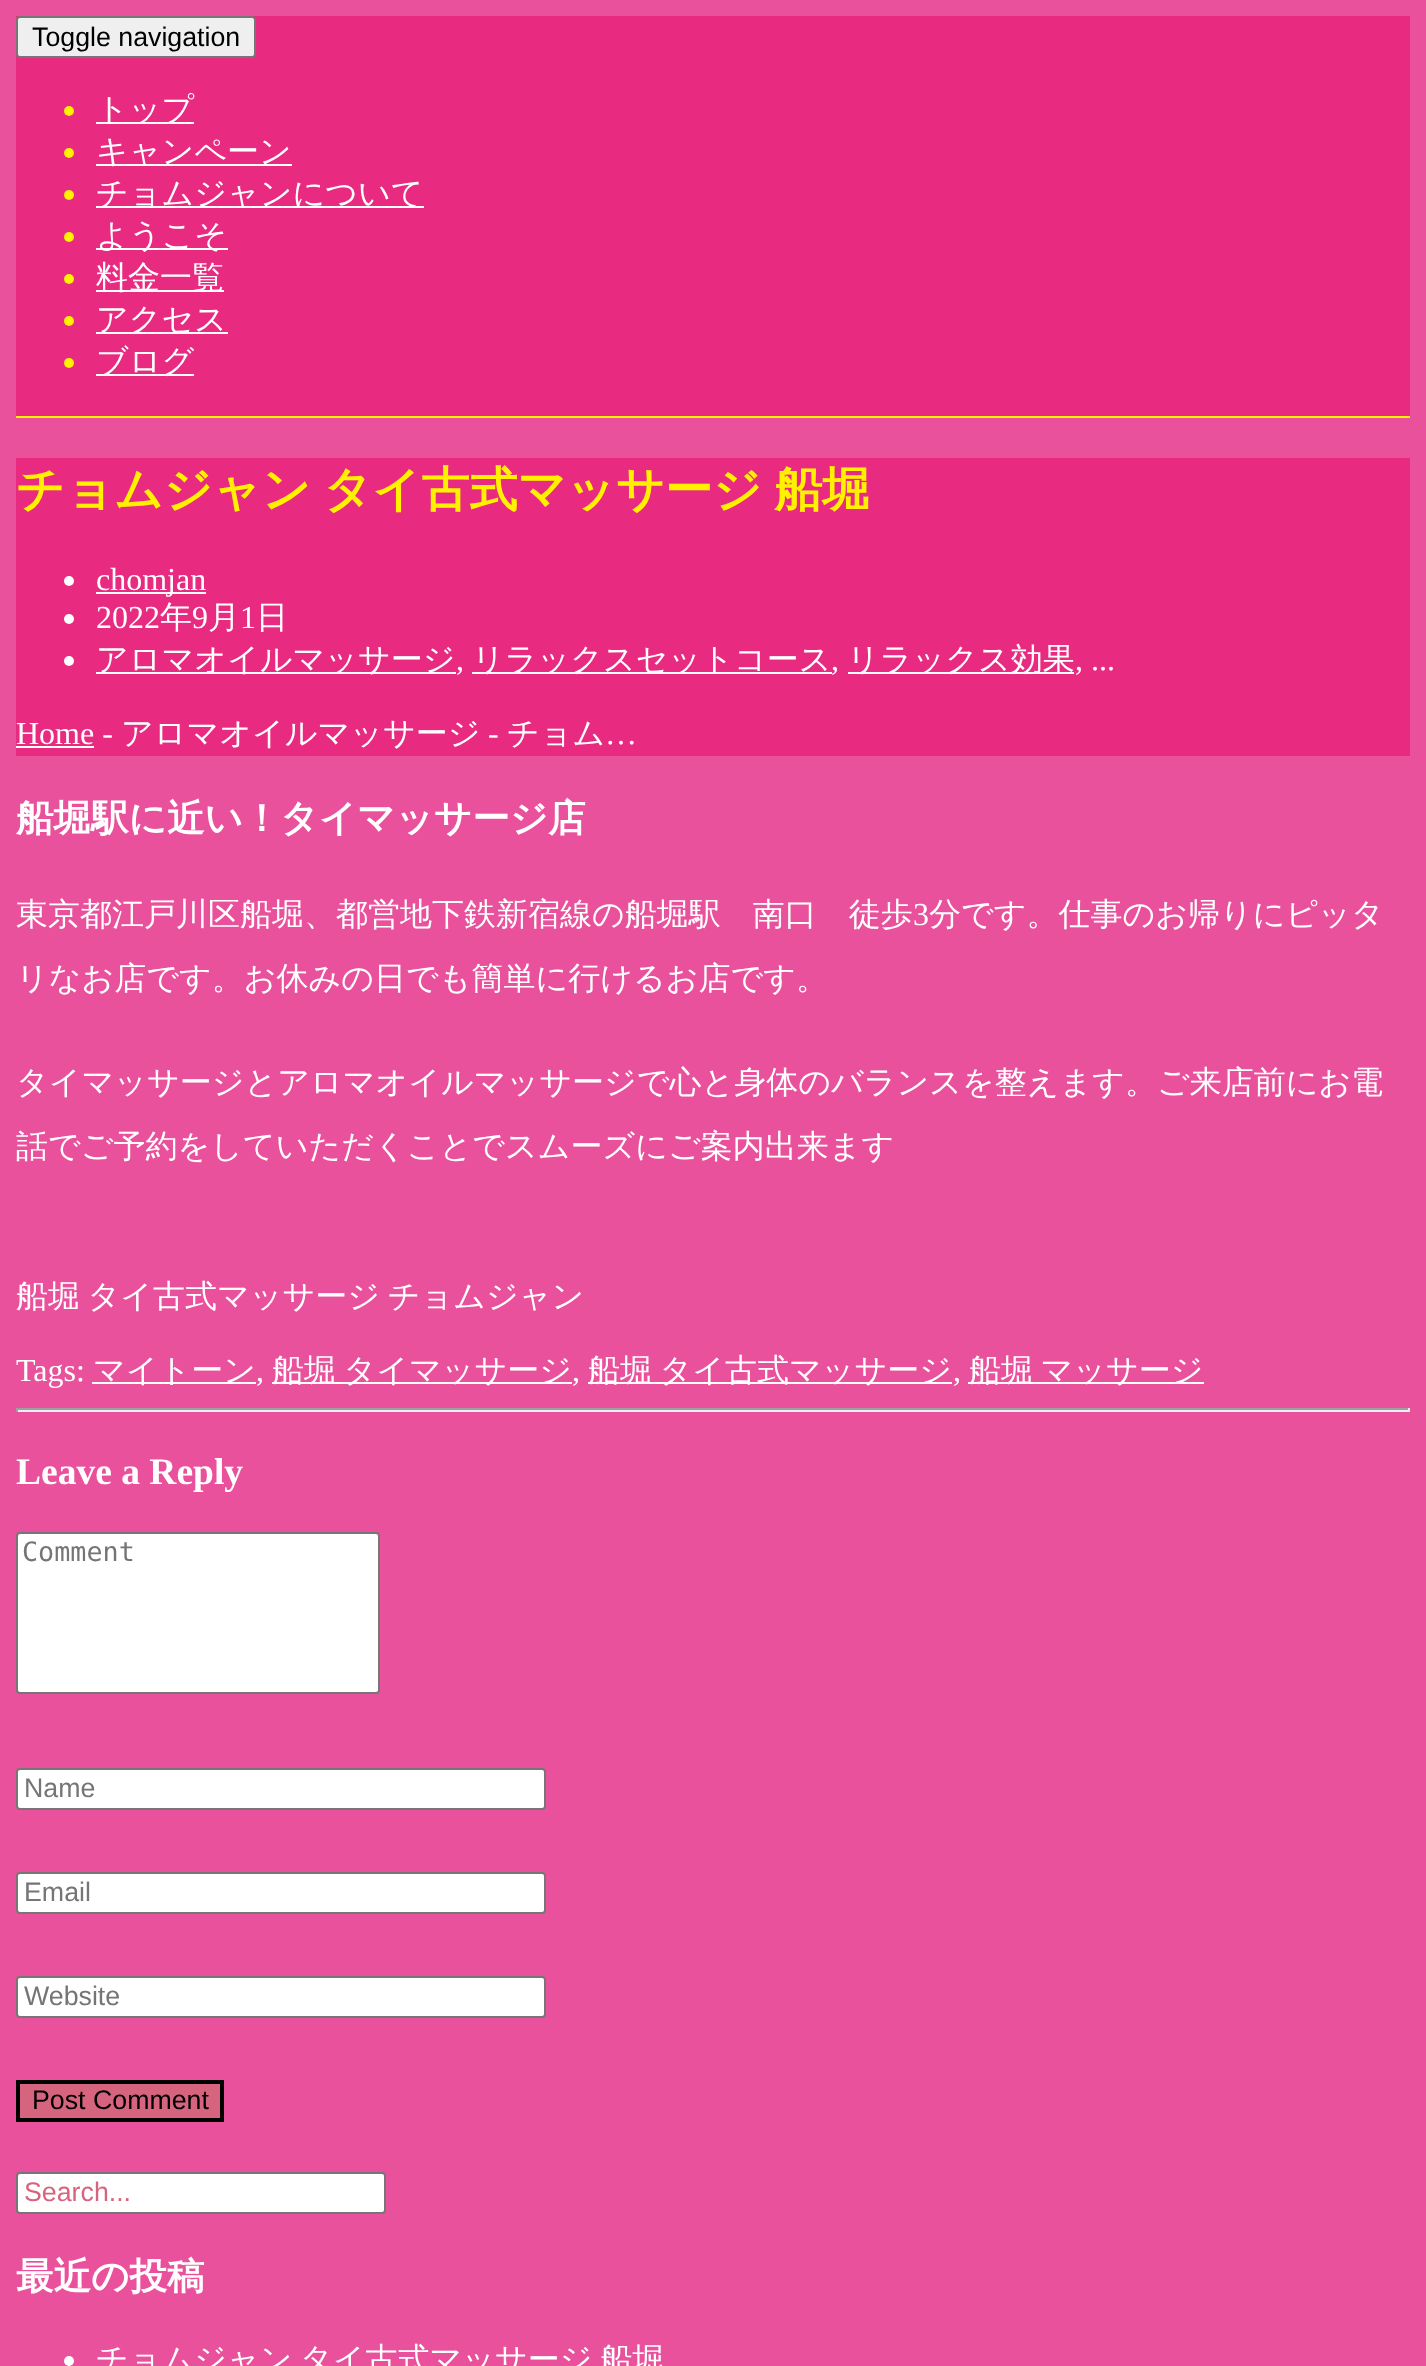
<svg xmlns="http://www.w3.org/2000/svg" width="1426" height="2366">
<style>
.a{font:26.75px Liberation Sans;fill:#000}
.b{font:500 32px WenQuanYi Zen Hei;fill:#fff}
.c{font:bold 48px WenQuanYi Zen Hei;fill:#fff100}
.d{font:32px Liberation Serif;fill:#fff}
.e{font:bold 37.5px WenQuanYi Zen Hei;fill:#fff}
.f{font:bold 37.5px Liberation Serif;fill:#fff}
.g{font:26.75px DejaVu Sans Mono;fill:#757575}
.h{font:26.75px Liberation Sans;fill:#757575}
.i{font:26.75px Liberation Sans;fill:#d6647e}
</style>
<rect width="100%" height="100%" fill="#ea519c"/>
<path fill="#e82a80" d="M16 16h1394v400H16z"/>
<path fill="#fff100" d="M16 416h1394v2H16z"/>
<rect fill="#efefef" stroke="#767676" stroke-width="2" x="17" y="17" width="238" height="40" rx="3"/>
<circle fill="#fff100" cx="69" cy="111" r="5"/>
<path fill="#fff" d="M96 122h98v2H96z"/>
<circle fill="#fff100" cx="69" cy="153" r="5"/>
<path fill="#fff" d="M96 164h196v2H96z"/>
<circle fill="#fff100" cx="69" cy="195" r="5"/>
<path fill="#fff" d="M96 206h328v2H96z"/>
<circle fill="#fff100" cx="69" cy="237" r="5"/>
<path fill="#fff" d="M96 248h132v2H96z"/>
<circle fill="#fff100" cx="69" cy="279" r="5"/>
<path fill="#fff" d="M96 290h128v2H96z"/>
<circle fill="#fff100" cx="69" cy="321" r="5"/>
<path fill="#fff" d="M96 332h132v2H96z"/>
<circle fill="#fff100" cx="69" cy="363" r="5"/>
<path fill="#fff" d="M96 374h98v2H96z"/>
<path fill="#e82a80" d="M16 458h1394v298H16z"/>
<circle fill="#fff" cx="69" cy="581" r="5"/>
<path fill="#fff" d="M96 592h110v2H96z"/>
<circle fill="#fff" cx="69" cy="619" r="5"/>
<circle fill="#fff" cx="69" cy="661" r="5"/>
<path fill="#fff" d="M96 672h360v2H96z"/>
<path fill="#fff" d="M472 672h360v2H472z"/>
<path fill="#fff" d="M848 672h226v2H848z"/>
<path fill="#fff" d="M16 746h78v2H16z"/>
<path fill="#fff" d="M92 1382h164v2H92z"/>
<path fill="#fff" d="M272 1382h300v2H272z"/>
<path fill="#fff" d="M588 1382h364v2H588z"/>
<path fill="#fff" d="M968 1382h236v2H968z"/>
<path fill="#9f9f9f" d="M16 1408h1394v2H16z"/>
<path fill="#eee" d="M1408 1408h2v4H1408z"/>
<path fill="#eee" d="M16 1410h1394v2H16z"/>
<path fill="#9f9f9f" d="M16 1408h2v4H16z"/>
<rect fill="#fff" stroke="#767676" stroke-width="2" x="17" y="1533" width="362" height="160" rx="3"/>
<rect fill="#fff" stroke="#767676" stroke-width="2" x="17" y="1769" width="528" height="40" rx="3"/>
<rect fill="#fff" stroke="#767676" stroke-width="2" x="17" y="1873" width="528" height="40" rx="3"/>
<rect fill="#fff" stroke="#767676" stroke-width="2" x="17" y="1977" width="528" height="40" rx="3"/>
<path fill="#d6647e" stroke="#000" stroke-width="4" d="M18 2082h204v38H18z"/>
<rect fill="#fff" stroke="#767676" stroke-width="2" x="17" y="2173" width="368" height="40" rx="3"/>
<circle fill="#fff" cx="69" cy="2361" r="5"/>
<text class="a" x="32" y="46">Toggle navigation</text>
<text class="b" x="96" y="120">トップ</text>
<text class="b" x="96" y="162">キャンペーン</text>
<text class="b" x="96" y="204">チョムジャンについて</text>
<text class="b" x="96" y="246">ようこそ</text>
<text class="b" x="96" y="288">料金一覧</text>
<text class="b" x="96" y="330">アクセス</text>
<text class="b" x="96" y="372">ブログ</text>
<text class="c" x="16" y="506" word-spacing="-2">チョムジャン タイ古式マッサージ 船堀</text>
<text class="d" x="96" y="590">chomjan</text>
<text class="d" x="96" y="628">2022</text>
<text class="b" x="160" y="628">年</text>
<text class="d" x="192" y="628">9</text>
<text class="b" x="208" y="628">月</text>
<text class="d" x="240" y="628">1</text>
<text class="b" x="256" y="628">日</text>
<text class="b" x="96" y="670">アロマオイルマッサージ</text>
<text class="b" x="472" y="670">リラックスセットコース</text>
<text class="b" x="847" y="670">リラックス効果</text>
<text class="d" x="456" y="670">,</text>
<text class="d" x="831" y="670">,</text>
<text class="d" x="1075" y="670">, ...</text>
<text class="d" x="16" y="744">Home -</text>
<text class="b" x="121" y="744">アロマオイルマッサージ</text>
<text class="d" x="488" y="744">-</text>
<text class="b" x="507" y="744">チョム</text>
<text class="d" x="605" y="744">…</text>
<text class="e" x="16" y="831">船堀駅に近い！タイマッサージ店</text>
<text class="b" x="16" y="925">東京都江戸川区船堀、都営地下鉄新宿線の船堀駅　南口　徒歩</text>
<text class="d" x="913" y="925">3</text>
<text class="b" x="929" y="925">分です。仕事のお帰りにピッタ</text>
<text class="b" x="16" y="989">リなお店です。お休みの日でも簡単に行けるお店です。</text>
<text class="b" x="16" y="1093">タイマッサージとアロマオイルマッサージで心と身体のバランスを整えます。ご来店前にお電</text>
<text class="b" x="16" y="1157">話でご予約をしていただくことでスムーズにご案内出来ます</text>
<text class="b" x="16" y="1307" word-spacing="-2">船堀 タイ古式マッサージ チョムジャン</text>
<text class="d" x="16" y="1381">Tags:</text>
<text class="b" x="93" y="1381">マイトーン</text>
<text class="d" x="256" y="1381">,</text>
<text class="b" x="272" y="1381" word-spacing="-2">船堀 タイマッサージ</text>
<text class="d" x="572" y="1381">,</text>
<text class="b" x="588" y="1381" word-spacing="-2">船堀 タイ古式マッサージ</text>
<text class="d" x="953" y="1381">,</text>
<text class="b" x="969" y="1381" word-spacing="-2">船堀 マッサージ</text>
<text class="f" x="16" y="1484">Leave a Reply</text>
<text class="g" x="22" y="1561">Comment</text>
<text class="h" x="24" y="1797">Name</text>
<text class="h" x="24" y="1901">Email</text>
<text class="h" x="24" y="2005">Website</text>
<text class="a" x="32" y="2109">Post Comment</text>
<text class="i" x="24" y="2201">Search...</text>
<text class="e" x="16" y="2289">最近の投稿</text>
<text class="b" x="96" y="2370" word-spacing="-2">チョムジャン タイ古式マッサージ 船堀</text>
</svg>
